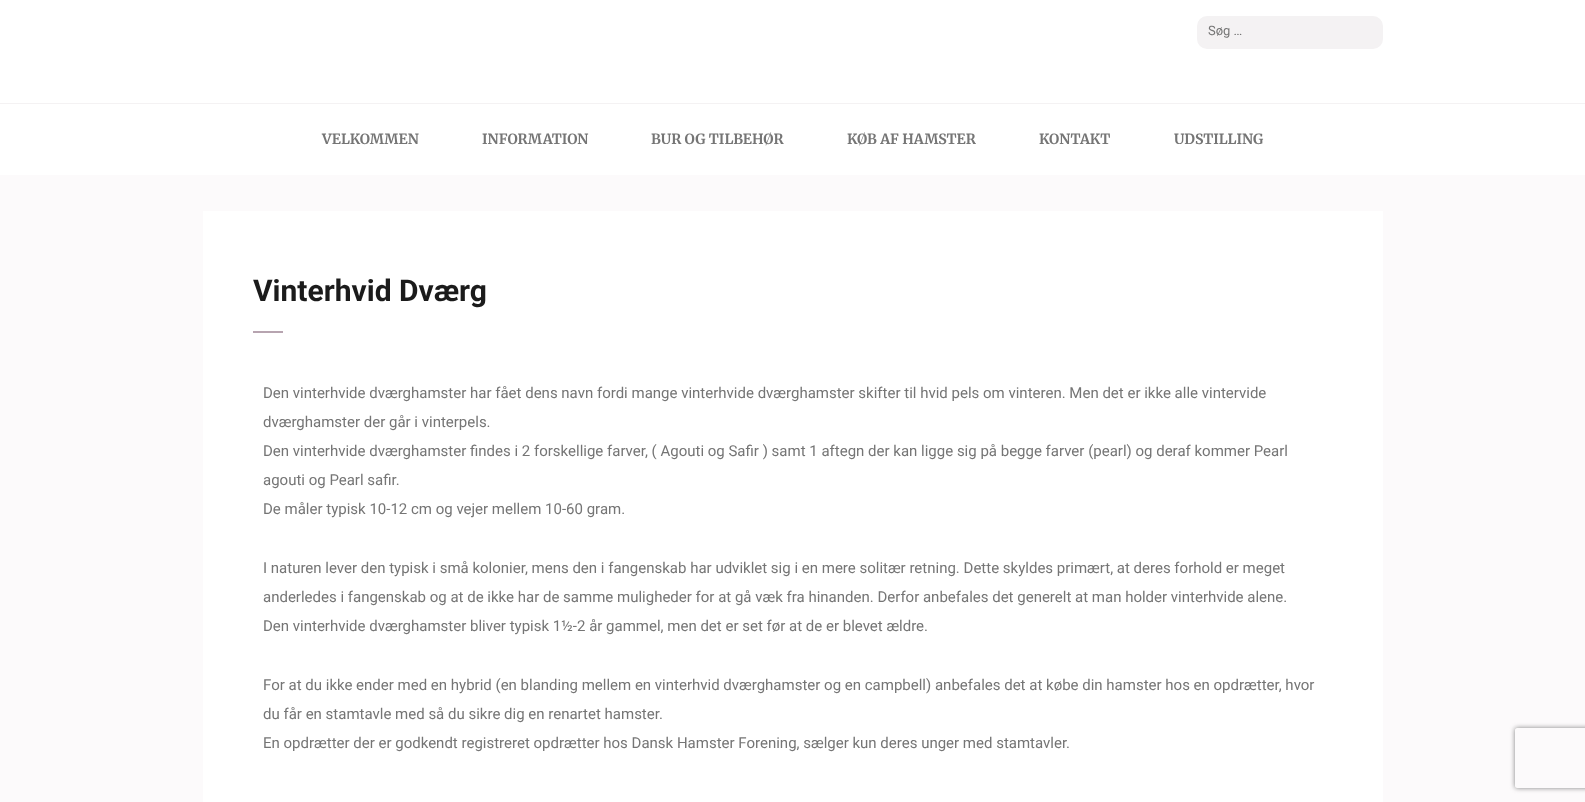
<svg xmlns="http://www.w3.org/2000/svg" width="1585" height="802">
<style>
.a{font:13px Roboto;fill:#757575}
.b{font:bold 14px Merriweather;fill:#757575}
.c{font:bold 30px Roboto;fill:#1b1b1b}
.d{font:15px Roboto;fill:#757575}
</style>
<defs>
<clipPath id="clip1"><path d="M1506 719h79v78h-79zm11 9h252c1 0 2 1 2 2v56c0 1-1 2-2 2h-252c-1 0-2-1-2-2v-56c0-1 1-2 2-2z" clip-rule="evenodd"/></clipPath>
</defs>
<rect width="100%" height="100%" fill="#fcfafb"/>
<path fill="#fff" d="M0 0h1585v103H0z"/>
<rect fill="#f4f2f3" x="1197" y="16" width="186" height="33" rx="10"/>
<path fill="#fff" d="M0 104h1585v71H0z"/>
<path fill="#f4f2f3" d="M0 103h1585v1H0z"/>
<path fill="#fff" d="M203 211h1180v591H203z"/>
<path fill="#b7a4b0" d="M253 331h30v2H253z"/>
<g clip-path="url(#clip1)">
<rect fill="#808080" filter="blur(2.5px)" x="1515" y="728" width="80" height="60" rx="2"/>
</g>
<text class="a" x="1208" y="35">Søg …</text>
<text class="b" x="322" y="144">VELKOMMEN</text>
<text class="b" x="482" y="144">INFORMATION</text>
<text class="b" x="651" y="144">BUR OG TILBEHØR</text>
<text class="b" x="847" y="144">KØB AF HAMSTER</text>
<text class="b" x="1039" y="144">KONTAKT</text>
<text class="b" x="1174" y="144">UDSTILLING</text>
<text class="c" x="253" y="301">Vinterhvid Dværg</text>
<text class="d" x="263" y="398">Den vinterhvide dværghamster har fået dens navn fordi mange vinterhvide dværghamster skifter til hvid pels om vinteren. Men det er ikke alle vintervide</text>
<text class="d" x="263" y="427">dværghamster der går i vinterpels.</text>
<text class="d" x="263" y="456">Den vinterhvide dværghamster findes i 2 forskellige farver, ( Agouti og Safir ) samt 1 aftegn der kan ligge sig på begge farver (pearl) og deraf kommer Pearl</text>
<text class="d" x="263" y="485">agouti og Pearl safir.</text>
<text class="d" x="263" y="514">De måler typisk 10-12 cm og vejer mellem 10-60 gram.</text>
<text class="d" x="263" y="573">I naturen lever den typisk i små kolonier, mens den i fangenskab har udviklet sig i en mere solitær retning. Dette skyldes primært, at deres forhold er meget</text>
<text class="d" x="263" y="602">anderledes i fangenskab og at de ikke har de samme muligheder for at gå væk fra hinanden. Derfor anbefales det generelt at man holder vinterhvide alene.</text>
<text class="d" x="263" y="631">Den vinterhvide dværghamster bliver typisk 1½-2 år gammel, men det er set før at de er blevet ældre.</text>
<text class="d" x="263" y="690">For at du ikke ender med en hybrid (en blanding mellem en vinterhvid dværghamster og en campbell) anbefales det at købe din hamster hos en opdrætter, hvor</text>
<text class="d" x="263" y="719">du får en stamtavle med så du sikre dig en renartet hamster.</text>
<text class="d" x="263" y="748">En opdrætter der er godkendt registreret opdrætter hos Dansk Hamster Forening, sælger kun deres unger med stamtavler.</text>
</svg>
